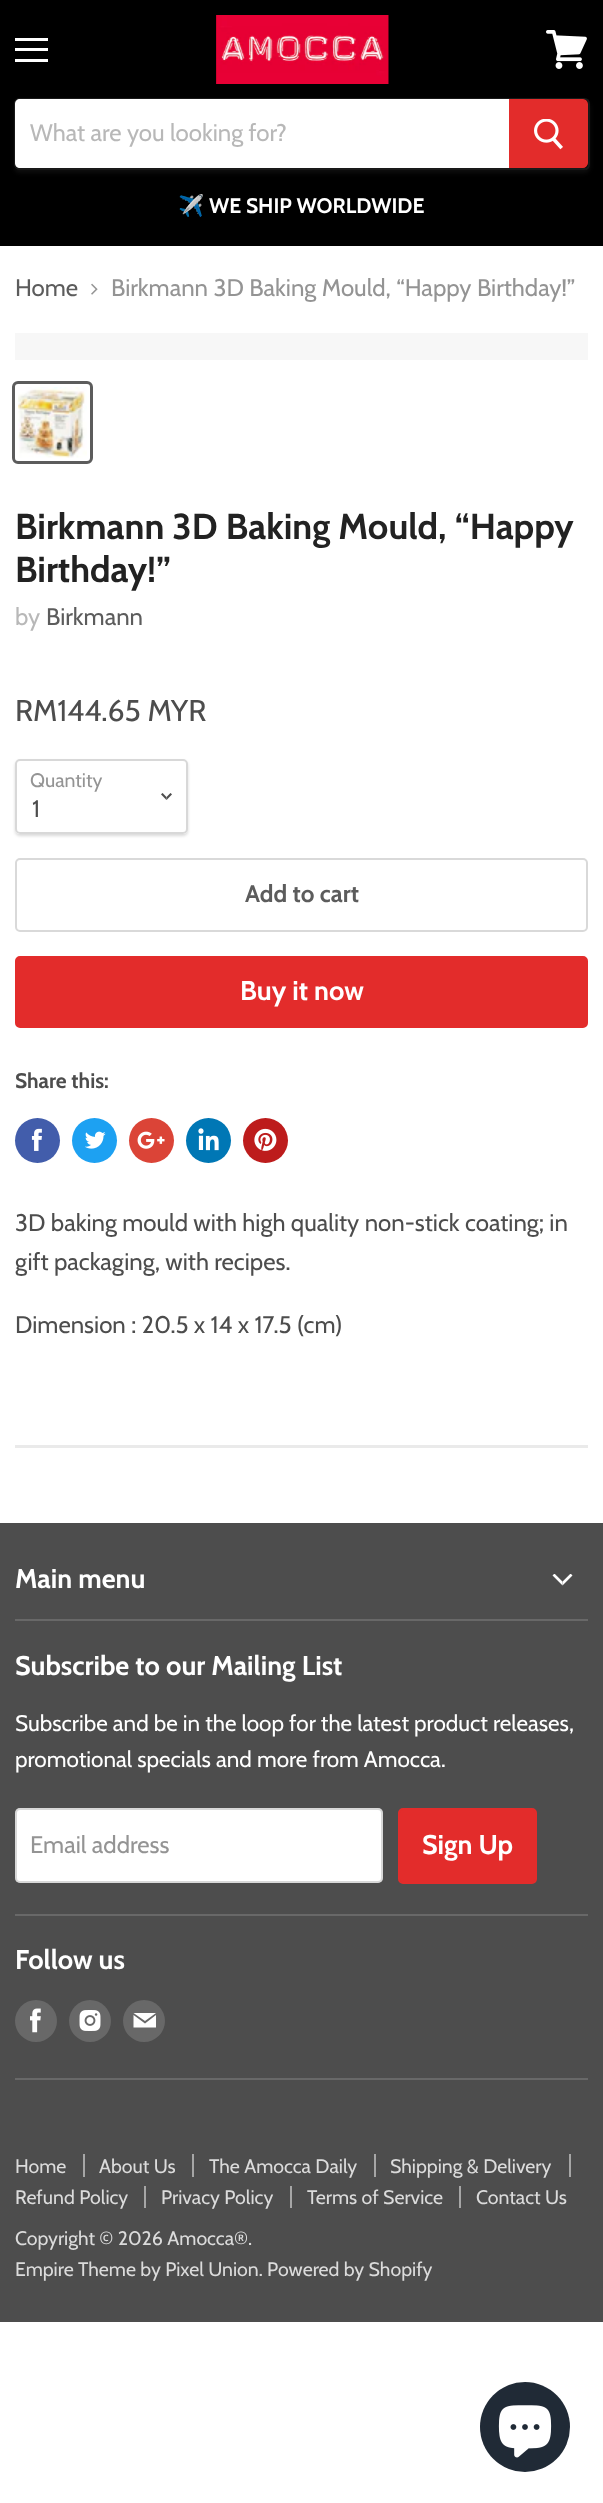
<svg xmlns="http://www.w3.org/2000/svg" width="603" height="2503">
<style>
.a{font:24px Cabin;fill:#b8b8b8}
.b{font:bold 21px Noto Color Emoji;fill:#fff}
.c{font:bold 21px Cabin;fill:#fff}
.d{font:24px Cabin;fill:#5c5c5c}
.e{font:24px Cabin;fill:#949494}
.f{font:bold 36px Cabin;fill:#222}
.g{font:30px Cabin;fill:#4d4d4d}
.h{font:19.5px Cabin;fill:#949494}
.i{font:24px Cabin;fill:#4d4d4d}
.j{font:bold 24px Cabin;fill:#5c5c5c}
.k{font:bold 27px Cabin;fill:#fff}
.l{font:bold 21px Cabin;fill:#4d4d4d}
.m{font:22.5px Cabin;fill:#fff}
.n{font:19.5px Cabin;fill:#dbdbdb}
</style>
<defs>
<clipPath id="clip1"><path d="M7 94h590v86h-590zm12 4h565c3.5 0 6 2.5 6 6v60c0 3.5-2.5 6-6 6h-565c-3 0-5-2-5-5v-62c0-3 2-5 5-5z" clip-rule="evenodd"/></clipPath>
<clipPath id="clip2"><path d="M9 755h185v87h-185zm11 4h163c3 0 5 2 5 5v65c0 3-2 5-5 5h-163c-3 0-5-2-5-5v-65c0-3 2-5 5-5z" clip-rule="evenodd"/></clipPath>
</defs>
<rect width="100%" height="100%" fill="#fff"/>
<path fill="#000" d="M0 0h603v246H0z"/>
<path fill="#fff" d="M15 38h33v3H15z"/>
<path fill="#fff" d="M15 48h33v3H15z"/>
<path fill="#fff" d="M15 59h33v3H15z"/>
<image href="1.png" x="546" y="30" width="41" height="39"/>
<image href="2.png" x="216" y="15" width="173" height="69"/>
<g clip-path="url(#clip1)">
<rect fill="#7f7f7f1c" filter="blur(2px)" x="14" y="101" width="576" height="72" rx="6"/>
</g>
<path fill="none" stroke="#7f7f7f33" stroke-width="2" d="M19 99h565c3 0 5 2 5 5v60c0 3-2 5-5 5h-565c-2 0-4-2-4-4v-62c0-2 2-4 4-4z"/>
<path fill="#fff" d="M20 99h489v69h-489c-3 0-5-2-5-5v-59c0-3 2-5 5-5z"/>
<path fill="#e32c2b" stroke="#e32c2b" stroke-width="2" d="M510 100h73c2 0 4 2 4 4v59c0 2-2 4-4 4h-73z"/>
<image href="3.png" x="534" y="119" width="29" height="31"/>
<image href="4.png" x="91" y="283" width="7" height="12"/>
<path fill="#f7f7f7" d="M15 333h573v27H15z"/>
<rect fill="none" stroke="#5c5c5c" stroke-width="3" x="13.5" y="382.5" width="78" height="80" rx="4.5"/>
<image href="5.png" x="18" y="387" width="69" height="71"/>
<g clip-path="url(#clip2)">
<rect fill="#00000026" filter="blur(1.5px)" x="15" y="761" width="173" height="75" rx="5"/>
</g>
<rect fill="none" stroke="#7f7f7f4d" stroke-width="2" x="16" y="760" width="171" height="73" rx="4"/>
<image href="6.png" x="161" y="793" width="11" height="7"/>
<rect fill="none" stroke="#d9d9d9" stroke-width="2" x="16" y="859" width="571" height="72" rx="4"/>
<rect fill="#e32c2b" stroke="#e32c2b" stroke-width="2" x="16" y="957" width="571" height="70" rx="4"/>
<circle fill="#425dab" cx="37.5" cy="1140.5" r="22.5"/>
<image href="7.png" x="31" y="1128" width="11" height="23"/>
<circle fill="#1da1f2" cx="94.5" cy="1140.5" r="22.5"/>
<image href="8.png" x="85" y="1131" width="21" height="18"/>
<circle fill="#db4437" cx="151.5" cy="1140.5" r="22.5"/>
<image href="9.png" x="137" y="1131" width="28" height="18"/>
<circle fill="#0077b5" cx="208.5" cy="1140.5" r="22.5"/>
<image href="10.png" x="198" y="1128" width="21" height="23"/>
<circle fill="#bd1c1c" cx="265.5" cy="1140.5" r="22.5"/>
<image href="11.png" x="254" y="1128" width="23" height="23"/>
<path fill="#7f7f7f29" d="M15 1445h573v3H15z"/>
<path fill="#4d4d4d" d="M0 1523h603v799H0z"/>
<path fill="#686868" d="M15 1619h573v2H15z"/>
<image href="12.png" x="552" y="1574" width="21" height="12"/>
<path fill="#686868" d="M15 1914h573v2H15z"/>
<rect fill="#fff" x="15" y="1808" width="368" height="75" rx="5"/>
<rect fill="none" stroke="#7f7f7f4d" stroke-width="2" x="16" y="1809" width="366" height="73" rx="4"/>
<rect fill="#e32c2b" stroke="#e32c2b" stroke-width="2" x="399" y="1809" width="137" height="74" rx="4"/>
<path fill="#686868" d="M15 2078h573v2H15z"/>
<circle fill="#686868" cx="36" cy="2021" r="21"/>
<image href="13.png" x="30" y="2008" width="11" height="25"/>
<circle fill="#686868" cx="90" cy="2021" r="21"/>
<image href="14.png" x="79" y="2010" width="22" height="21"/>
<circle fill="#686868" cx="144" cy="2021" r="21"/>
<path fill="#fff" fill-rule="evenodd" d="M156 2013h-22.5l11.5 8zm-11 10.5l-11.5-8.5v12.5h22.5v-12.5z"/>
<path fill="#a6a6a6" d="M83 2154h2v23H83z"/>
<path fill="#a6a6a6" d="M192 2154h2v23H192z"/>
<path fill="#a6a6a6" d="M374 2154h2v23H374z"/>
<path fill="#a6a6a6" d="M569 2154h2v23H569z"/>
<path fill="#a6a6a6" d="M144 2186h2v22H144z"/>
<path fill="#a6a6a6" d="M290 2186h2v22H290z"/>
<path fill="#a6a6a6" d="M459 2186h2v22H459z"/>
<circle fill="#202a36" cx="525" cy="2427" r="45"/>
<image href="15.png" x="498" y="2405" width="54" height="53"/>
<text class="a" x="30" y="141">What are you looking for?</text>
<text class="b" x="178" y="213">✈️</text>
<text class="c" x="209" y="213">WE SHIP WORLDWIDE</text>
<text class="d" x="15" y="296">Home</text>
<text class="e" x="111" y="296">Birkmann 3D Baking Mould, “Happy Birthday!”</text>
<text class="f" x="15" y="539">Birkmann 3D Baking Mould, “Happy</text>
<text class="f" x="15" y="582">Birthday!”</text>
<text class="a" x="15" y="625">by</text>
<text class="d" x="46" y="625">Birkmann</text>
<text class="g" x="15" y="721">RM144.65 MYR</text>
<text class="h" x="30" y="787">Quantity</text>
<text class="i" x="32" y="817">1</text>
<text class="j" x="245" y="902">Add to cart</text>
<text class="k" x="240" y="1000">Buy it now</text>
<text class="l" x="15" y="1088">Share this:</text>
<text class="i" x="15" y="1231">3D baking mould with high quality non-stick coating; in</text>
<text class="i" x="15" y="1270">gift packaging, with recipes.</text>
<text class="i" x="15" y="1333">Dimension : 20.5 x 14 x 17.5 (cm)</text>
<text class="k" x="15" y="1588">Main menu</text>
<text class="k" x="15" y="1675">Subscribe to our Mailing List</text>
<text class="m" x="15" y="1731">Subscribe and be in the loop for the latest product releases,</text>
<text class="m" x="15" y="1767">promotional specials and more from Amocca.</text>
<text class="e" x="30" y="1853">Email address</text>
<text class="k" x="422" y="1854">Sign Up</text>
<text class="k" x="15" y="1969">Follow us</text>
<text class="n" x="15" y="2173">Home</text>
<text class="n" x="99" y="2173">About Us</text>
<text class="n" x="209" y="2173">The Amocca Daily</text>
<text class="n" x="390" y="2173">Shipping &amp; Delivery</text>
<text class="n" x="15" y="2204">Refund Policy</text>
<text class="n" x="161" y="2204">Privacy Policy</text>
<text class="n" x="307" y="2204">Terms of Service</text>
<text class="n" x="476" y="2204">Contact Us</text>
<text class="n" x="15" y="2245">Copyright © 2026 Amocca®.</text>
<text class="n" x="15" y="2276">Empire Theme by Pixel Union. Powered by Shopify</text>
</svg>
